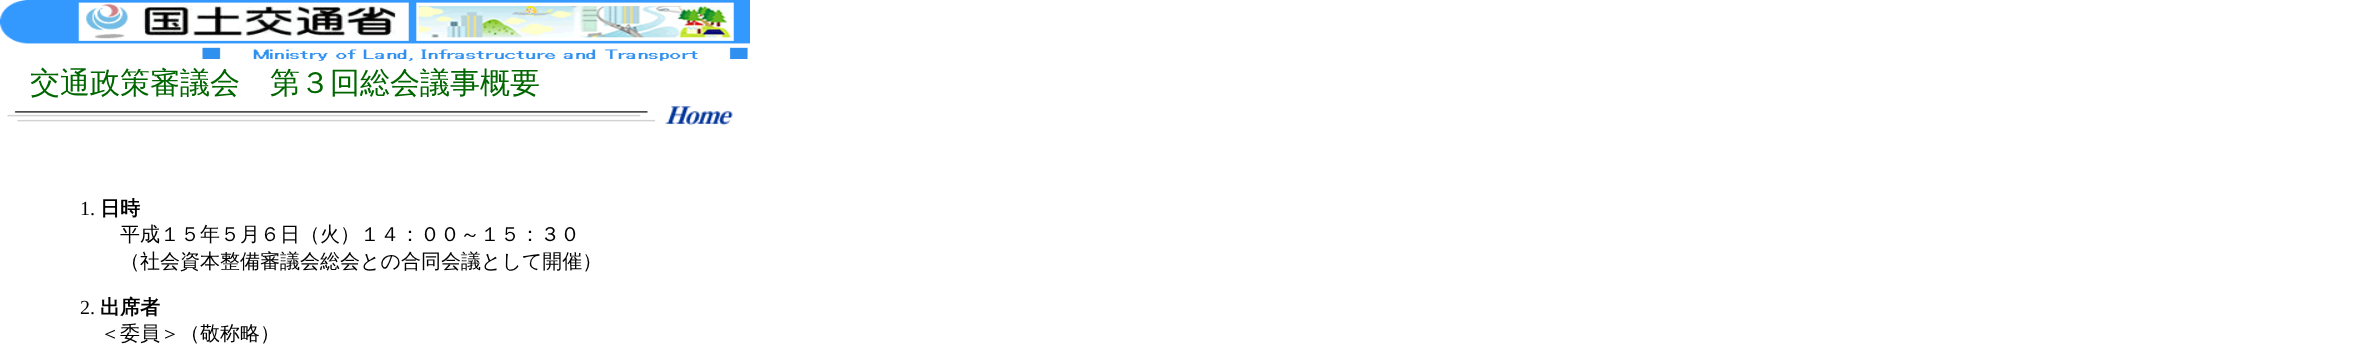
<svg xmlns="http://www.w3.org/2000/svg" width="2376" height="354">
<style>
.a{font:500 30px WenQuanYi Zen Hei;fill:#060}
.b{font:20px Liberation Serif;fill:#000}
.c{font:bold 20px WenQuanYi Zen Hei;fill:#000}
.d{font:500 20px WenQuanYi Zen Hei;fill:#000}
</style>
<rect width="100%" height="100%" fill="#fff"/>
<image href="1.png" x="0" y="0" width="750" height="61"/>
<image href="2.png" x="7" y="111" width="623" height="11"/>
<image href="3.png" x="630" y="106" width="103" height="20"/>
<text class="a" x="30" y="93">交通政策審議会　第３回総会議事概要</text>
<text class="b" x="80" y="215">1.</text>
<text class="c" x="100" y="215">日時</text>
<text class="d" x="120" y="241">平成１５年５月６日（火）１４：００～１５：３０</text>
<text class="d" x="120" y="268">（社会資本整備審議会総会との合同会議として開催）</text>
<text class="b" x="80" y="314">2.</text>
<text class="c" x="100" y="314">出席者</text>
<text class="d" x="100" y="340">＜委員＞（敬称略）</text>
</svg>
